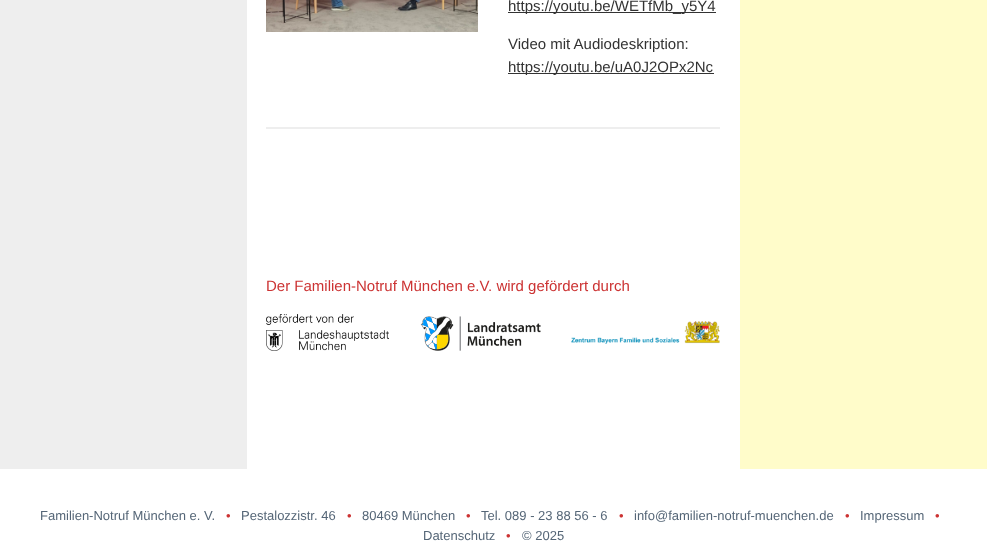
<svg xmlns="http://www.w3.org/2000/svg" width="987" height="559">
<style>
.a{font:15px Liberation Sans;fill:#333}
.b{font:15px Liberation Sans;fill:#c33}
.c{font:13px Liberation Sans;fill:#567}
.d{font:13px Liberation Sans;fill:#c33}
</style>
<rect width="100%" height="100%" fill="#fff"/>
<image href="1.png" x="0" y="0" width="987" height="469"/>
<path fill="#fff" d="M247 0h493v469H247z"/>
<image href="2.png" x="266" y="0" width="212" height="32"/>
<path fill="#333" d="M508 12h208v1H508z"/>
<path fill="#333" d="M508 73h206v1H508z"/>
<path fill="#eee" d="M266 127h454v2H266z"/>
<image href="3.png" x="266" y="314" width="123" height="37"/>
<image href="4.png" x="420" y="316" width="121" height="35"/>
<image href="5.png" x="571" y="321" width="149" height="23"/>
<text class="a" x="508" y="11">https://youtu.be/WETfMb_y5Y4</text>
<text class="a" x="508" y="49">Video mit Audiodeskription:</text>
<text class="a" x="508" y="72">https://youtu.be/uA0J2OPx2Nc</text>
<text class="b" x="266" y="291">Der Familien-Notruf München e.V. wird gefördert durch</text>
<text class="c" x="40" y="520">Familien-Notruf München e. V.</text>
<text class="d" x="226" y="520">•</text>
<text class="c" x="241" y="520">Pestalozzistr. 46</text>
<text class="d" x="347" y="520">•</text>
<text class="c" x="362" y="520">80469 München</text>
<text class="d" x="466" y="520">•</text>
<text class="c" x="481" y="520">Tel. 089 - 23 88 56 - 6</text>
<text class="d" x="619" y="520">•</text>
<text class="c" x="634" y="520">info@familien-notruf-muenchen.de</text>
<text class="d" x="845" y="520">•</text>
<text class="c" x="860" y="520">Impressum</text>
<text class="d" x="935" y="520">•</text>
<text class="c" x="423" y="540">Datenschutz</text>
<text class="d" x="506" y="540">•</text>
<text class="c" x="522" y="540">© 2025</text>
</svg>
